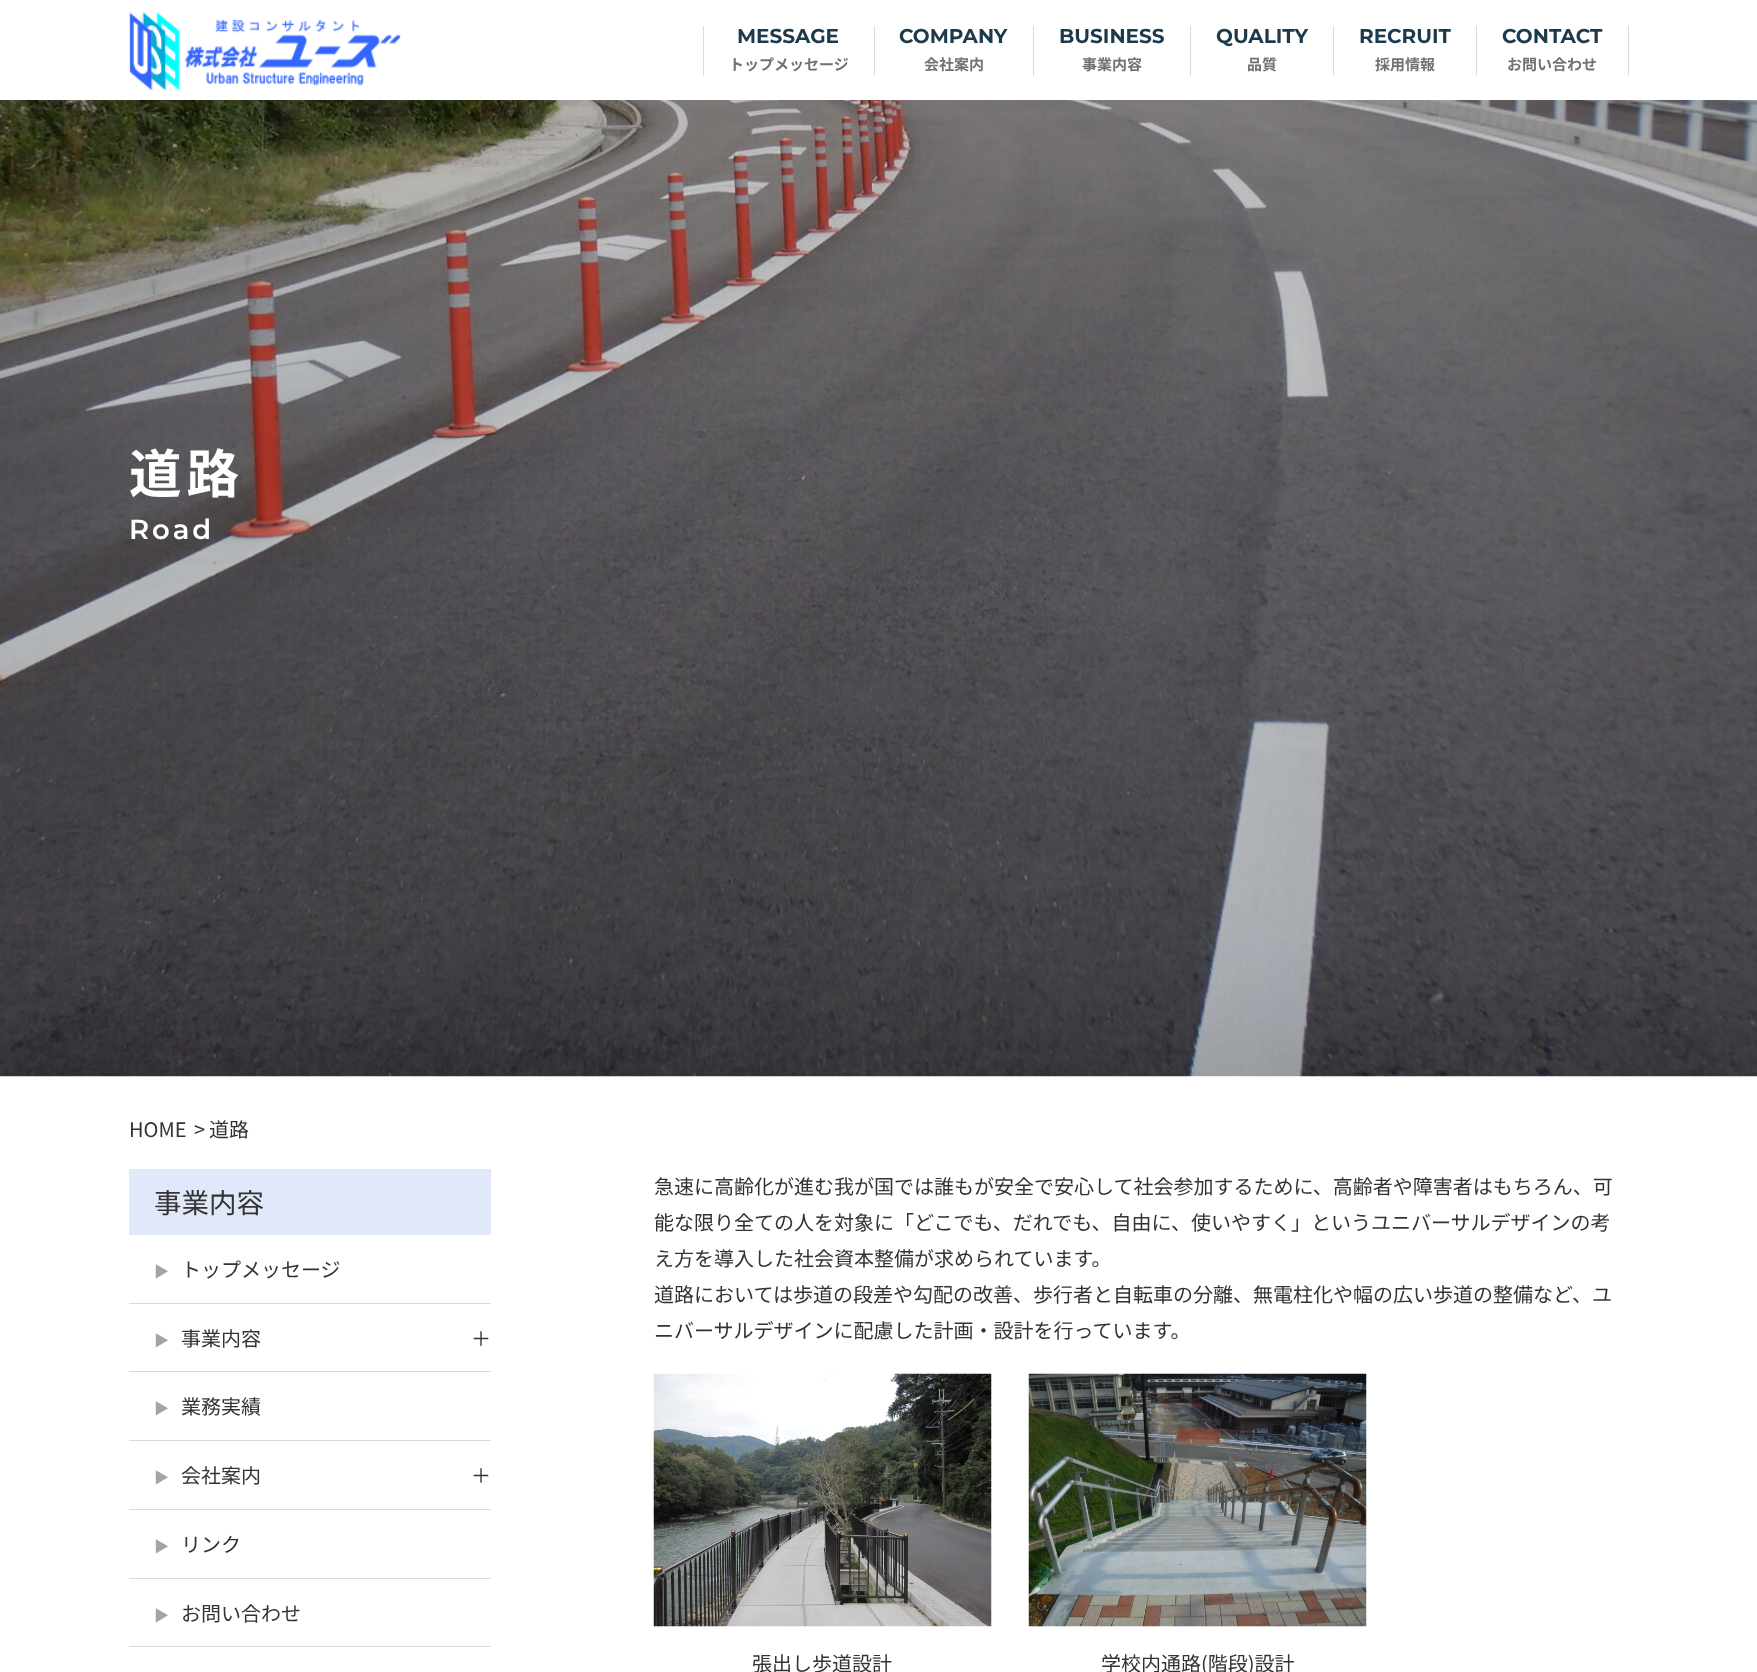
<svg xmlns="http://www.w3.org/2000/svg" width="1757" height="1672">
<style>
.a{font:bold 20px Montserrat;fill:#1d3a4d}
.b{font:bold 15px Noto Sans JP;fill:#766f6f}
.c{font:bold 52.5px Noto Sans JP;letter-spacing:5px;fill:#fff}
.d{font:600 27.5px Montserrat;letter-spacing:3px;fill:#fff}
.e{font:20px Noto Sans JP;fill:#333}
.f{font:27.5px Noto Sans JP;fill:#333}
.g{font:15px Noto Sans JP;fill:#a4a4a4}
</style>
<rect width="100%" height="100%" fill="#fff"/>
<image href="1.png" x="129" y="12" width="272" height="78"/>
<path fill="#dadada" d="M703 26h1v50H703z"/>
<path fill="#dadada" d="M874 26h1v50H874z"/>
<path fill="#dadada" d="M1033 26h1v50H1033z"/>
<path fill="#dadada" d="M1190 26h1v50H1190z"/>
<path fill="#dadada" d="M1333 26h1v50H1333z"/>
<path fill="#dadada" d="M1628 26h1v50H1628z"/>
<path fill="#dadada" d="M1476 26h1v50H1476z"/>
<image href="2.png" x="0" y="100" width="1757" height="977"/>
<path fill="#e1e8f9" d="M129 1169h362v66H129z"/>
<path fill="#dadada" d="M129 1303h362v1H129z"/>
<path fill="#dadada" d="M129 1371h362v1H129z"/>
<path fill="#dadada" d="M129 1440h362v1H129z"/>
<path fill="#dadada" d="M129 1509h362v1H129z"/>
<path fill="#dadada" d="M129 1578h362v1H129z"/>
<path fill="#dadada" d="M129 1646h362v1H129z"/>
<image href="3.png" x="653" y="1373" width="339" height="254"/>
<image href="4.png" x="1028" y="1373" width="339" height="254"/>
<text class="a" x="737" y="43">MESSAGE</text>
<text class="b" x="729" y="70">トップメッセージ</text>
<text class="a" x="899" y="43">COMPANY</text>
<text class="b" x="924" y="70">会社案内</text>
<text class="a" x="1059" y="43">BUSINESS</text>
<text class="b" x="1082" y="70">事業内容</text>
<text class="a" x="1216" y="43">QUALITY</text>
<text class="b" x="1247" y="70">品質</text>
<text class="a" x="1359" y="43">RECRUIT</text>
<text class="b" x="1375" y="70">採用情報</text>
<text class="a" x="1502" y="43">CONTACT</text>
<text class="b" x="1507" y="70">お問い合わせ</text>
<text class="c" x="129" y="493">道路</text>
<text class="d" x="129" y="539">Road</text>
<text class="e" x="129" y="1137">HOME</text>
<text class="e" x="194" y="1137">&gt;</text>
<text class="e" x="209" y="1137">道路</text>
<text class="f" x="154" y="1213">事業内容</text>
<text class="g" x="154" y="1277">▶</text>
<text class="e" x="181" y="1277">トップメッセージ</text>
<text class="g" x="154" y="1346">▶</text>
<text class="e" x="181" y="1346">事業内容</text>
<text class="e" x="471" y="1346">＋</text>
<text class="g" x="154" y="1414">▶</text>
<text class="e" x="181" y="1414">業務実績</text>
<text class="g" x="154" y="1483">▶</text>
<text class="e" x="181" y="1483">会社案内</text>
<text class="e" x="471" y="1483">＋</text>
<text class="g" x="154" y="1552">▶</text>
<text class="e" x="181" y="1552">リンク</text>
<text class="g" x="154" y="1621">▶</text>
<text class="e" x="181" y="1621">お問い合わせ</text>
<text class="e" x="654" y="1194">急速に高齢化が進む我が国では誰もが安全で安心して社会参加するために、高齢者や障害者はもちろん、可</text>
<text class="e" x="654" y="1230">能な限り全ての人を対象に「どこでも、だれでも、自由に、使いやすく」というユニバーサルデザインの考</text>
<text class="e" x="654" y="1266">え方を導入した社会資本整備が求められています。</text>
<text class="e" x="654" y="1302">道路においては歩道の段差や勾配の改善、歩行者と自転車の分離、無電柱化や幅の広い歩道の整備など、ユ</text>
<text class="e" x="654" y="1338">ニバーサルデザインに配慮した計画・設計を行っています。</text>
<text class="e" x="752" y="1671">張出し歩道設計</text>
<text class="e" x="1101" y="1671">学校内通路(階段)設計</text>
</svg>
